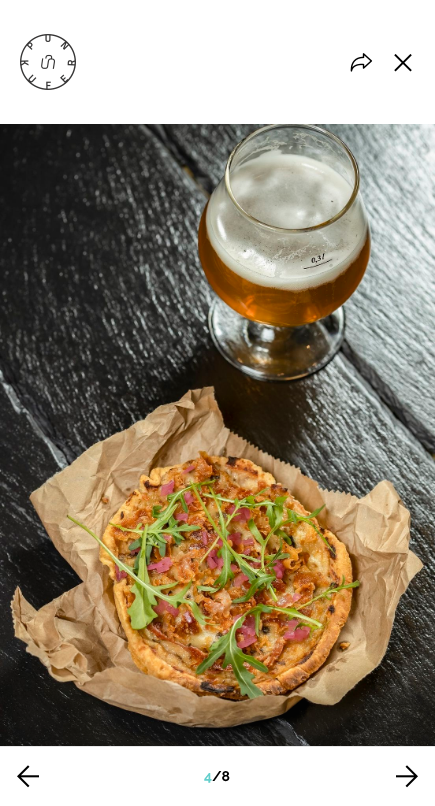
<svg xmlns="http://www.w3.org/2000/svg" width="435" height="806">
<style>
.a{font:bold 14px Raleway;fill:#64cfcc}
.b{font:bold 14px Raleway;fill:#000}
</style>
<rect width="100%" height="100%" fill="#fff"/>
<image href="1.png" x="20" y="34" width="56" height="56"/>
<image href="2.png" x="350" y="53" width="23" height="19"/>
<image href="3.png" x="394" y="54" width="18" height="18"/>
<image href="4.png" x="0" y="124" width="435" height="622"/>
<path fill="#e6e6e6" d="M0 746h435v1H0z"/>
<image href="5.png" x="17" y="765" width="22" height="23"/>
<image href="6.png" x="396" y="765" width="22" height="23"/>
<text class="a" x="204" y="781">4</text>
<text class="b" x="212" y="781">/8</text>
</svg>
